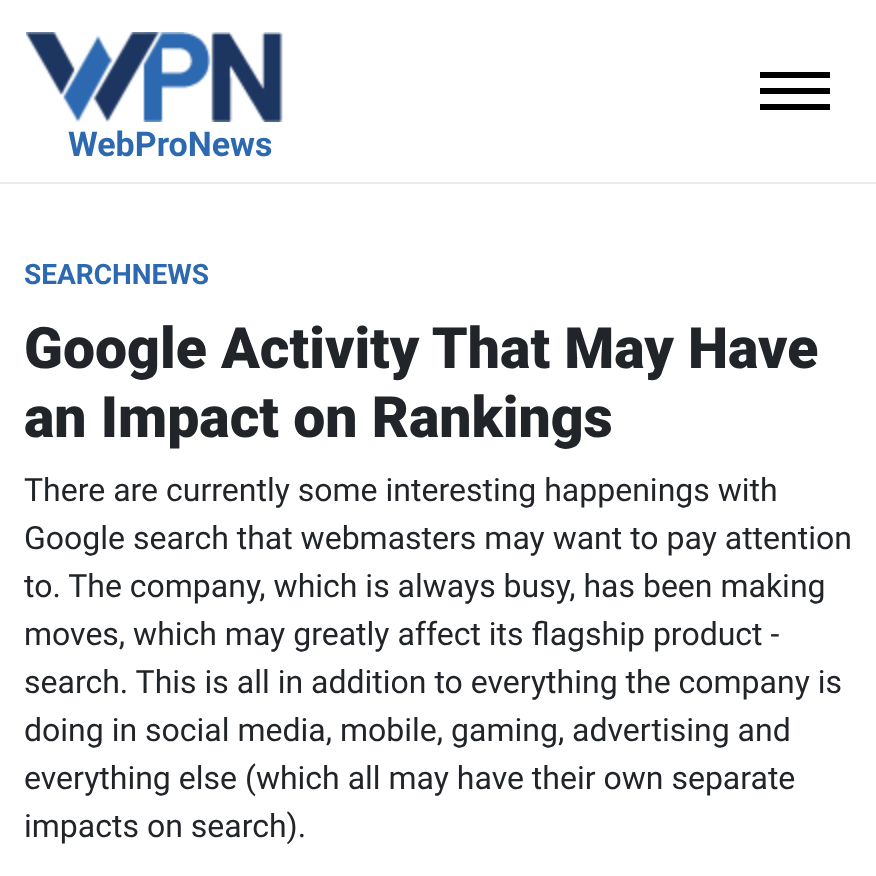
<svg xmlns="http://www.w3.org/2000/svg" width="876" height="876">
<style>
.a{font:bold 34px Roboto;fill:#2d69b0}
.b{font:bold 28px Roboto;fill:#2d69b0}
.c{font:900 57.1px Roboto;fill:#212529}
.d{font:32px Roboto;fill:#212529}
</style>
<rect width="100%" height="100%" fill="#fff"/>
<path fill="#ececec" d="M0 182h876v2H0z"/>
<path fill="#000" d="M760 72h70v6H760z"/>
<path fill="#000" d="M760 88h70v6H760z"/>
<path fill="#000" d="M760 104h70v6H760z"/>
<image href="1.png" x="26" y="32" width="257" height="90"/>
<text class="a" x="68" y="156">WebProNews</text>
<text class="b" x="24" y="284">SEARCHNEWS</text>
<text class="c" x="24" y="368">Google Activity That May Have</text>
<text class="c" x="24" y="437">an Impact on Rankings</text>
<text class="d" x="24" y="501">There are currently some interesting happenings with</text>
<text class="d" x="24" y="549">Google search that webmasters may want to pay attention</text>
<text class="d" x="24" y="597">to. The company, which is always busy, has been making</text>
<text class="d" x="24" y="645">moves, which may greatly affect its flagship product -</text>
<text class="d" x="24" y="693">search. This is all in addition to everything the company is</text>
<text class="d" x="24" y="741">doing in social media, mobile, gaming, advertising and</text>
<text class="d" x="24" y="789">everything else (which all may have their own separate</text>
<text class="d" x="24" y="837">impacts on search).</text>
</svg>
